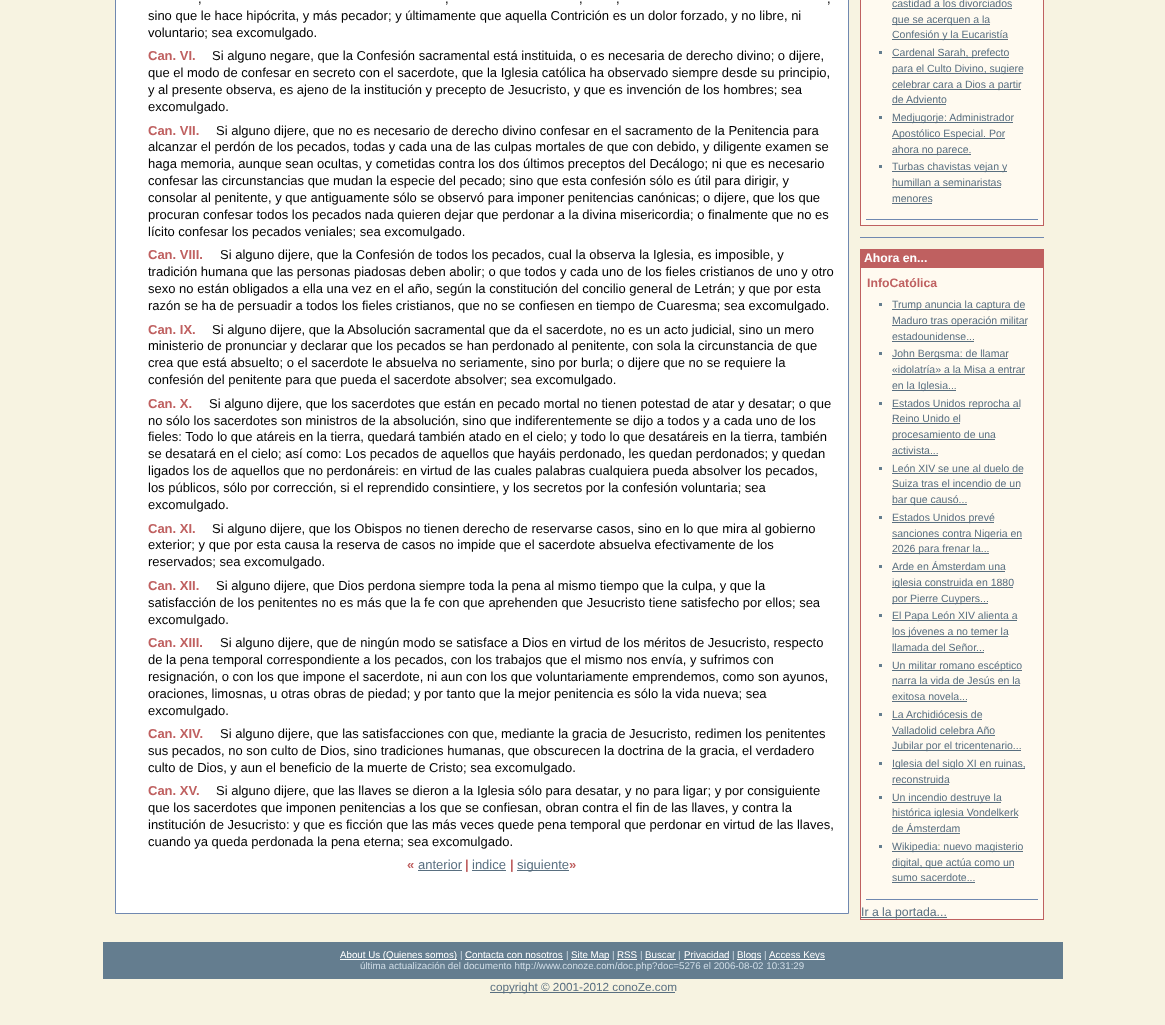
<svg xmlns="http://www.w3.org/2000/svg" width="1165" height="1025">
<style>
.a{font:13px Liberation Sans;fill:#000}
.b{font:bold 13px Liberation Sans;fill:#bf6060}
.c{font:13px Liberation Sans;fill:#596f80}
.d{font:10.5px Liberation Sans;fill:#596f80}
.e{font:bold 12.25px Liberation Sans;fill:#fff}
.f{font:bold 12.25px Liberation Sans;fill:#bf6060}
.g{font:12.25px Liberation Sans;fill:#596f80}
.h{font:9.75px Liberation Sans;fill:#fff}
.i{font:9.75px Liberation Sans;fill:#cfdce6}
.j{font:11.75px Liberation Sans;fill:#596f80}
</style>
<rect width="100%" height="100%" fill="#f7f3e1"/>
<path fill="#fff" stroke="#7088b0" d="M115.5 -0.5h733v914H115.5z"/>
<path fill="#596f80" d="M418 870h44v1H418z"/>
<path fill="#596f80" d="M472 870h34v1H472z"/>
<path fill="#596f80" d="M517 870h52v1H517z"/>
<path fill="#fffaf0" d="M861 0h182v225H861z"/>
<path fill="#bf6060" d="M1043 0h1v226H1043z"/>
<path fill="#bf6060" d="M860 225h184v1H860z"/>
<path fill="#bf6060" d="M860 0h1v226H860z"/>
<path fill="#7088b0" d="M866 219h172v1H866z"/>
<path fill="#596f80" d="M892 8h120v1H892z"/>
<path fill="#596f80" d="M892 24h98v1H892z"/>
<path fill="#596f80" d="M892 39h116v1H892z"/>
<path fill="#647d8f" d="M879 51h3v3H879z"/>
<path fill="#596f80" d="M892 57h117v1H892z"/>
<path fill="#596f80" d="M892 73h131v1H892z"/>
<path fill="#596f80" d="M892 89h129v1H892z"/>
<path fill="#596f80" d="M892 104h54v1H892z"/>
<path fill="#647d8f" d="M879 116h3v3H879z"/>
<path fill="#596f80" d="M892 122h121v1H892z"/>
<path fill="#596f80" d="M892 138h113v1H892z"/>
<path fill="#596f80" d="M892 154h79v1H892z"/>
<path fill="#647d8f" d="M879 165h3v3H879z"/>
<path fill="#596f80" d="M892 171h115v1H892z"/>
<path fill="#596f80" d="M892 187h109v1H892z"/>
<path fill="#596f80" d="M892 203h40v1H892z"/>
<path fill="#7088b0" d="M860 237h184v1H860z"/>
<path fill="#fffaf0" d="M861 268h182v651H861z"/>
<path fill="#bf6060" d="M1043 249h1v671H1043z"/>
<path fill="#bf6060" d="M860 919h184v1H860z"/>
<path fill="#bf6060" d="M860 249h1v671H860z"/>
<path fill="#bf6060" d="M861 249h182v19H861z"/>
<path fill="#7088b0" d="M866 899h172v1H866z"/>
<path fill="#647d8f" d="M879 303h3v3H879z"/>
<path fill="#596f80" d="M892 309h133v1H892z"/>
<path fill="#596f80" d="M892 325h135v1H892z"/>
<path fill="#596f80" d="M892 341h82v1H892z"/>
<path fill="#647d8f" d="M879 352h3v3H879z"/>
<path fill="#596f80" d="M892 358h116v1H892z"/>
<path fill="#596f80" d="M892 374h133v1H892z"/>
<path fill="#596f80" d="M892 390h64v1H892z"/>
<path fill="#647d8f" d="M879 402h3v3H879z"/>
<path fill="#596f80" d="M892 408h128v1H892z"/>
<path fill="#596f80" d="M892 423h68v1H892z"/>
<path fill="#596f80" d="M892 439h103v1H892z"/>
<path fill="#596f80" d="M892 455h46v1H892z"/>
<path fill="#647d8f" d="M879 467h3v3H879z"/>
<path fill="#596f80" d="M892 473h131v1H892z"/>
<path fill="#596f80" d="M892 488h128v1H892z"/>
<path fill="#596f80" d="M892 504h75v1H892z"/>
<path fill="#647d8f" d="M879 516h3v3H879z"/>
<path fill="#596f80" d="M892 522h102v1H892z"/>
<path fill="#596f80" d="M892 538h130v1H892z"/>
<path fill="#596f80" d="M892 553h97v1H892z"/>
<path fill="#647d8f" d="M879 565h3v3H879z"/>
<path fill="#596f80" d="M892 571h113v1H892z"/>
<path fill="#596f80" d="M892 587h121v1H892z"/>
<path fill="#596f80" d="M892 603h96v1H892z"/>
<path fill="#647d8f" d="M879 614h3v3H879z"/>
<path fill="#596f80" d="M892 620h125v1H892z"/>
<path fill="#596f80" d="M892 636h116v1H892z"/>
<path fill="#596f80" d="M892 652h92v1H892z"/>
<path fill="#647d8f" d="M879 664h3v3H879z"/>
<path fill="#596f80" d="M892 670h130v1H892z"/>
<path fill="#596f80" d="M892 685h128v1H892z"/>
<path fill="#596f80" d="M892 701h75v1H892z"/>
<path fill="#647d8f" d="M879 713h3v3H879z"/>
<path fill="#596f80" d="M892 719h90v1H892z"/>
<path fill="#596f80" d="M892 735h103v1H892z"/>
<path fill="#596f80" d="M892 750h129v1H892z"/>
<path fill="#647d8f" d="M879 762h3v3H879z"/>
<path fill="#596f80" d="M892 768h133v1H892z"/>
<path fill="#596f80" d="M892 784h57v1H892z"/>
<path fill="#647d8f" d="M879 796h3v3H879z"/>
<path fill="#596f80" d="M892 802h109v1H892z"/>
<path fill="#596f80" d="M892 817h126v1H892z"/>
<path fill="#596f80" d="M892 833h68v1H892z"/>
<path fill="#647d8f" d="M879 845h3v3H879z"/>
<path fill="#596f80" d="M892 851h131v1H892z"/>
<path fill="#596f80" d="M892 867h122v1H892z"/>
<path fill="#596f80" d="M892 882h83v1H892z"/>
<path fill="#596f80" d="M861 917h86v1H861z"/>
<path fill="#647d8f" d="M103 942h960v37H103z"/>
<path fill="#fff" d="M340 959h117v1H340z"/>
<path fill="#fff" d="M465 959h98v1H465z"/>
<path fill="#fff" d="M571 959h38v1H571z"/>
<path fill="#fff" d="M617 959h20v1H617z"/>
<path fill="#fff" d="M645 959h31v1H645z"/>
<path fill="#fff" d="M684 959h45v1H684z"/>
<path fill="#fff" d="M737 959h24v1H737z"/>
<path fill="#fff" d="M769 959h56v1H769z"/>
<path fill="#596f80" d="M490 992h185v1H490z"/>
<text class="a" x="198" y="3">,</text>
<text class="a" x="445" y="3">,</text>
<text class="a" x="579" y="3">,</text>
<text class="a" x="616" y="3">,</text>
<text class="a" x="827" y="3">,</text>
<text class="a" x="148" y="20">sino que le hace hipócrita, y más pecador; y últimamente que aquella Contrición es un dolor forzado, y no libre, ni</text>
<text class="a" x="148" y="37">voluntario; sea excomulgado.</text>
<text class="b" x="148" y="60">Can. VI.</text>
<text class="a" x="212" y="60">Si alguno negare, que la Confesión sacramental está instituida, o es necesaria de derecho divino; o dijere,</text>
<text class="a" x="148" y="77">que el modo de confesar en secreto con el sacerdote, que la Iglesia católica ha observado siempre desde su principio,</text>
<text class="a" x="148" y="94">y al presente observa, es ajeno de la institución y precepto de Jesucristo, y que es invención de los hombres; sea</text>
<text class="a" x="148" y="111">excomulgado.</text>
<text class="b" x="148" y="135">Can. VII.</text>
<text class="a" x="216" y="135">Si alguno dijere, que no es necesario de derecho divino confesar en el sacramento de la Penitencia para</text>
<text class="a" x="148" y="151">alcanzar el perdón de los pecados, todas y cada una de las culpas mortales de que con debido, y diligente examen se</text>
<text class="a" x="148" y="168">haga memoria, aunque sean ocultas, y cometidas contra los dos últimos preceptos del Decálogo; ni que es necesario</text>
<text class="a" x="148" y="185">confesar las circunstancias que mudan la especie del pecado; sino que esta confesión sólo es útil para dirigir, y</text>
<text class="a" x="148" y="202">consolar al penitente, y que antiguamente sólo se observó para imponer penitencias canónicas; o dijere, que los que</text>
<text class="a" x="148" y="219">procuran confesar todos los pecados nada quieren dejar que perdonar a la divina misericordia; o finalmente que no es</text>
<text class="a" x="148" y="236">lícito confesar los pecados veniales; sea excomulgado.</text>
<text class="b" x="148" y="259">Can. VIII.</text>
<text class="a" x="220" y="259">Si alguno dijere, que la Confesión de todos los pecados, cual la observa la Iglesia, es imposible, y</text>
<text class="a" x="148" y="276">tradición humana que las personas piadosas deben abolir; o que todos y cada uno de los fieles cristianos de uno y otro</text>
<text class="a" x="148" y="293">sexo no están obligados a ella una vez en el año, según la constitución del concilio general de Letrán; y que por esta</text>
<text class="a" x="148" y="310">razón se ha de persuadir a todos los fieles cristianos, que no se confiesen en tiempo de Cuaresma; sea excomulgado.</text>
<text class="b" x="148" y="334">Can. IX.</text>
<text class="a" x="212" y="334">Si alguno dijere, que la Absolución sacramental que da el sacerdote, no es un acto judicial, sino un mero</text>
<text class="a" x="148" y="350">ministerio de pronunciar y declarar que los pecados se han perdonado al penitente, con sola la circunstancia de que</text>
<text class="a" x="148" y="367">crea que está absuelto; o el sacerdote le absuelva no seriamente, sino por burla; o dijere que no se requiere la</text>
<text class="a" x="148" y="384">confesión del penitente para que pueda el sacerdote absolver; sea excomulgado.</text>
<text class="b" x="148" y="408">Can. X.</text>
<text class="a" x="209" y="408">Si alguno dijere, que los sacerdotes que están en pecado mortal no tienen potestad de atar y desatar; o que</text>
<text class="a" x="148" y="425">no sólo los sacerdotes son ministros de la absolución, sino que indiferentemente se dijo a todos y a cada uno de los</text>
<text class="a" x="148" y="441">fieles: Todo lo que atáreis en la tierra, quedará también atado en el cielo; y todo lo que desatáreis en la tierra, también</text>
<text class="a" x="148" y="458">se desatará en el cielo; así como: Los pecados de aquellos que hayáis perdonado, les quedan perdonados; y quedan</text>
<text class="a" x="148" y="475">ligados los de aquellos que no perdonáreis: en virtud de las cuales palabras cualquiera pueda absolver los pecados,</text>
<text class="a" x="148" y="492">los públicos, sólo por corrección, si el reprendido consintiere, y los secretos por la confesión voluntaria; sea</text>
<text class="a" x="148" y="509">excomulgado.</text>
<text class="b" x="148" y="533">Can. XI.</text>
<text class="a" x="212" y="533">Si alguno dijere, que los Obispos no tienen derecho de reservarse casos, sino en lo que mira al gobierno</text>
<text class="a" x="148" y="549">exterior; y que por esta causa la reserva de casos no impide que el sacerdote absuelva efectivamente de los</text>
<text class="a" x="148" y="566">reservados; sea excomulgado.</text>
<text class="b" x="148" y="590">Can. XII.</text>
<text class="a" x="216" y="590">Si alguno dijere, que Dios perdona siempre toda la pena al mismo tiempo que la culpa, y que la</text>
<text class="a" x="148" y="607">satisfacción de los penitentes no es más que la fe con que aprehenden que Jesucristo tiene satisfecho por ellos; sea</text>
<text class="a" x="148" y="624">excomulgado.</text>
<text class="b" x="148" y="647">Can. XIII.</text>
<text class="a" x="220" y="647">Si alguno dijere, que de ningún modo se satisface a Dios en virtud de los méritos de Jesucristo, respecto</text>
<text class="a" x="148" y="664">de la pena temporal correspondiente a los pecados, con los trabajos que el mismo nos envía, y sufrimos con</text>
<text class="a" x="148" y="681">resignación, o con los que impone el sacerdote, ni aun con los que voluntariamente emprendemos, como son ayunos,</text>
<text class="a" x="148" y="698">oraciones, limosnas, u otras obras de piedad; y por tanto que la mejor penitencia es sólo la vida nueva; sea</text>
<text class="a" x="148" y="715">excomulgado.</text>
<text class="b" x="148" y="738">Can. XIV.</text>
<text class="a" x="220" y="738">Si alguno dijere, que las satisfacciones con que, mediante la gracia de Jesucristo, redimen los penitentes</text>
<text class="a" x="148" y="755">sus pecados, no son culto de Dios, sino tradiciones humanas, que obscurecen la doctrina de la gracia, el verdadero</text>
<text class="a" x="148" y="772">culto de Dios, y aun el beneficio de la muerte de Cristo; sea excomulgado.</text>
<text class="b" x="148" y="795">Can. XV.</text>
<text class="a" x="216" y="795">Si alguno dijere, que las llaves se dieron a la Iglesia sólo para desatar, y no para ligar; y por consiguiente</text>
<text class="a" x="148" y="812">que los sacerdotes que imponen penitencias a los que se confiesan, obran contra el fin de las llaves, y contra la</text>
<text class="a" x="148" y="829">institución de Jesucristo: y que es ficción que las más veces quede pena temporal que perdonar en virtud de las llaves,</text>
<text class="a" x="148" y="846">cuando ya queda perdonada la pena eterna; sea excomulgado.</text>
<text class="b" x="407" y="869">«</text>
<text class="c" x="418" y="869">anterior</text>
<text class="b" x="465" y="869">|</text>
<text class="c" x="472" y="869">indice</text>
<text class="b" x="510" y="869">|</text>
<text class="c" x="517" y="869">siguiente</text>
<text class="b" x="569" y="869">»</text>
<text class="d" x="892" y="7">castidad a los divorciados</text>
<text class="d" x="892" y="23">que se acerquen a la</text>
<text class="d" x="892" y="38">Confesión y la Eucaristía</text>
<text class="d" x="892" y="56">Cardenal Sarah, prefecto</text>
<text class="d" x="892" y="72">para el Culto Divino, sugiere</text>
<text class="d" x="892" y="88">celebrar cara a Dios a partir</text>
<text class="d" x="892" y="103">de Adviento</text>
<text class="d" x="892" y="121">Medjugorje: Administrador</text>
<text class="d" x="892" y="137">Apostólico Especial. Por</text>
<text class="d" x="892" y="153">ahora no parece.</text>
<text class="d" x="892" y="170">Turbas chavistas vejan y</text>
<text class="d" x="892" y="186">humillan a seminaristas</text>
<text class="d" x="892" y="202">menores</text>
<text class="e" x="864" y="262">Ahora en...</text>
<text class="f" x="867" y="287">InfoCatólica</text>
<text class="d" x="892" y="308">Trump anuncia la captura de</text>
<text class="d" x="892" y="324">Maduro tras operación militar</text>
<text class="d" x="892" y="340">estadounidense...</text>
<text class="d" x="892" y="357">John Bergsma: de llamar</text>
<text class="d" x="892" y="373">«idolatría» a la Misa a entrar</text>
<text class="d" x="892" y="389">en la Iglesia...</text>
<text class="d" x="892" y="407">Estados Unidos reprocha al</text>
<text class="d" x="892" y="422">Reino Unido el</text>
<text class="d" x="892" y="438">procesamiento de una</text>
<text class="d" x="892" y="454">activista...</text>
<text class="d" x="892" y="472">León XIV se une al duelo de</text>
<text class="d" x="892" y="487">Suiza tras el incendio de un</text>
<text class="d" x="892" y="503">bar que causó...</text>
<text class="d" x="892" y="521">Estados Unidos prevé</text>
<text class="d" x="892" y="537">sanciones contra Nigeria en</text>
<text class="d" x="892" y="552">2026 para frenar la...</text>
<text class="d" x="892" y="570">Arde en Ámsterdam una</text>
<text class="d" x="892" y="586">iglesia construida en 1880</text>
<text class="d" x="892" y="602">por Pierre Cuypers...</text>
<text class="d" x="892" y="619">El Papa León XIV alienta a</text>
<text class="d" x="892" y="635">los jóvenes a no temer la</text>
<text class="d" x="892" y="651">llamada del Señor...</text>
<text class="d" x="892" y="669">Un militar romano escéptico</text>
<text class="d" x="892" y="684">narra la vida de Jesús en la</text>
<text class="d" x="892" y="700">exitosa novela...</text>
<text class="d" x="892" y="718">La Archidiócesis de</text>
<text class="d" x="892" y="734">Valladolid celebra Año</text>
<text class="d" x="892" y="749">Jubilar por el tricentenario...</text>
<text class="d" x="892" y="767">Iglesia del siglo XI en ruinas,</text>
<text class="d" x="892" y="783">reconstruida</text>
<text class="d" x="892" y="801">Un incendio destruye la</text>
<text class="d" x="892" y="816">histórica iglesia Vondelkerk</text>
<text class="d" x="892" y="832">de Ámsterdam</text>
<text class="d" x="892" y="850">Wikipedia: nuevo magisterio</text>
<text class="d" x="892" y="866">digital, que actúa como un</text>
<text class="d" x="892" y="881">sumo sacerdote...</text>
<text class="g" x="861" y="916">Ir a la portada...</text>
<text class="h" x="340" y="958">About Us (Quienes somos)</text>
<text class="i" x="460" y="958">|</text>
<text class="h" x="465" y="958">Contacta con nosotros</text>
<text class="i" x="566" y="958">|</text>
<text class="h" x="571" y="958">Site Map</text>
<text class="i" x="612" y="958">|</text>
<text class="h" x="617" y="958">RSS</text>
<text class="i" x="640" y="958">|</text>
<text class="h" x="645" y="958">Buscar</text>
<text class="i" x="678" y="958">|</text>
<text class="h" x="684" y="958">Privacidad</text>
<text class="i" x="732" y="958">|</text>
<text class="h" x="737" y="958">Blogs</text>
<text class="i" x="764" y="958">|</text>
<text class="h" x="769" y="958">Access Keys</text>
<text class="i" x="360" y="969">última actualización del documento http://www.conoze.com/doc.php?doc=5276 el 2006-08-02 10:31:29</text>
<text class="j" x="490" y="991">copyright © 2001-2012 conoZe.com</text>
</svg>
